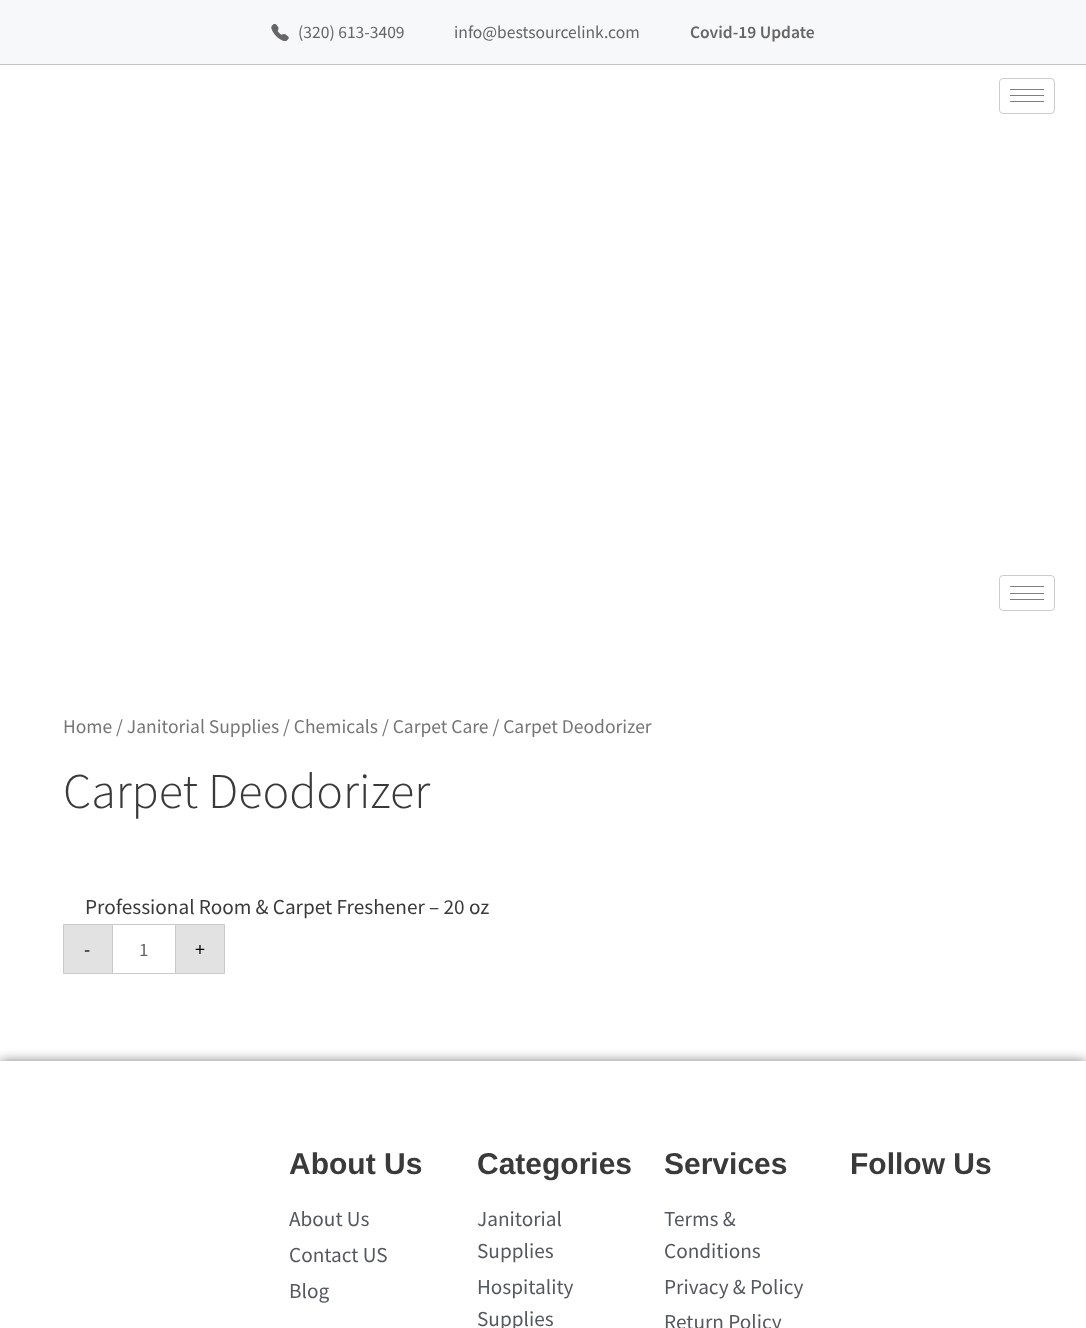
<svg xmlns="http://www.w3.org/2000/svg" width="1086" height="1328">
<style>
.a{font:17.5px Source Sans Pro;fill:#666}
.b{font:600 17.5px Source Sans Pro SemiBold;fill:#666}
.c{font:19.55px Source Sans Pro;fill:#767676}
.d{font:300 50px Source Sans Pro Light;fill:#3a3a3a}
.e{font:21.25px Source Sans Pro;fill:#3a3a3a}
.f{font:20px Source Sans Pro;fill:#000}
.g{font:19px Source Sans Pro;fill:#666}
.h{font:bold 30px Liberation Sans;fill:#3a3a3a}
.i{font:21.25px Source Sans Pro;fill:#54595f}
</style>
<defs>
<clipPath id="clip1"><path d="M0 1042h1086v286h-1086zm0 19h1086v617h-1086z" clip-rule="evenodd"/></clipPath>
</defs>
<rect width="100%" height="100%" fill="#fff"/>
<path fill="#f7f8f9" d="M0 0h1086v64H0z"/>
<path fill="#c3c3c3" d="M0 64h1086v1H0z"/>
<image href="1.png" x="271" y="24" width="18" height="17"/>
<rect fill="none" stroke="#ccc" x="999.5" y="78.5" width="55" height="35" rx="3.5"/>
<path fill="#808080" d="M1010 89h34v1H1010z"/>
<path fill="#808080" d="M1010 95h34v1H1010z"/>
<path fill="#808080" d="M1010 101h34v1H1010z"/>
<rect fill="none" stroke="#ccc" x="999.5" y="575.5" width="55" height="35" rx="3.5"/>
<path fill="#808080" d="M1010 586h34v1H1010z"/>
<path fill="#808080" d="M1010 593h34v1H1010z"/>
<path fill="#808080" d="M1010 599h34v1H1010z"/>
<path fill="#e2e2e2" stroke="#cac9c9" d="M63.5 924.5h49v49H63.5z"/>
<path fill="#cac9c9" d="M113 924h62v1H113z"/>
<path fill="#cac9c9" d="M113 973h62v1H113z"/>
<path fill="#e2e2e2" stroke="#cac9c9" d="M175.5 924.5h49v49H175.5z"/>
<g clip-path="url(#clip1)">
<path fill="#00000080" filter="blur(6px)" d="M0 1061h1086v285H0z"/>
</g>
<text class="a" x="298" y="38">(320) 613-3409</text>
<text class="a" x="454" y="38">info@bestsourcelink.com</text>
<text class="b" x="690" y="38">Covid-19 Update</text>
<text class="c" x="63" y="733">Home / Janitorial Supplies / Chemicals / Carpet Care / Carpet Deodorizer</text>
<text class="d" x="63" y="808">Carpet Deodorizer</text>
<text class="e" x="85" y="914">Professional Room &amp; Carpet Freshener – 20 oz</text>
<text class="f" x="84" y="956">-</text>
<text class="g" x="139" y="956">1</text>
<text class="f" x="195" y="956">+</text>
<text class="h" x="289" y="1174">About Us</text>
<text class="i" x="289" y="1226">About Us</text>
<text class="i" x="289" y="1262">Contact US</text>
<text class="i" x="289" y="1298">Blog</text>
<text class="h" x="477" y="1174">Categories</text>
<text class="i" x="477" y="1226">Janitorial</text>
<text class="i" x="477" y="1258">Supplies</text>
<text class="i" x="477" y="1294">Hospitality</text>
<text class="i" x="477" y="1326">Supplies</text>
<text class="h" x="664" y="1174">Services</text>
<text class="i" x="664" y="1226">Terms &amp;</text>
<text class="i" x="664" y="1258">Conditions</text>
<text class="i" x="664" y="1294">Privacy &amp; Policy</text>
<text class="i" x="664" y="1329">Return Policy</text>
<text class="h" x="850" y="1174">Follow Us</text>
</svg>
